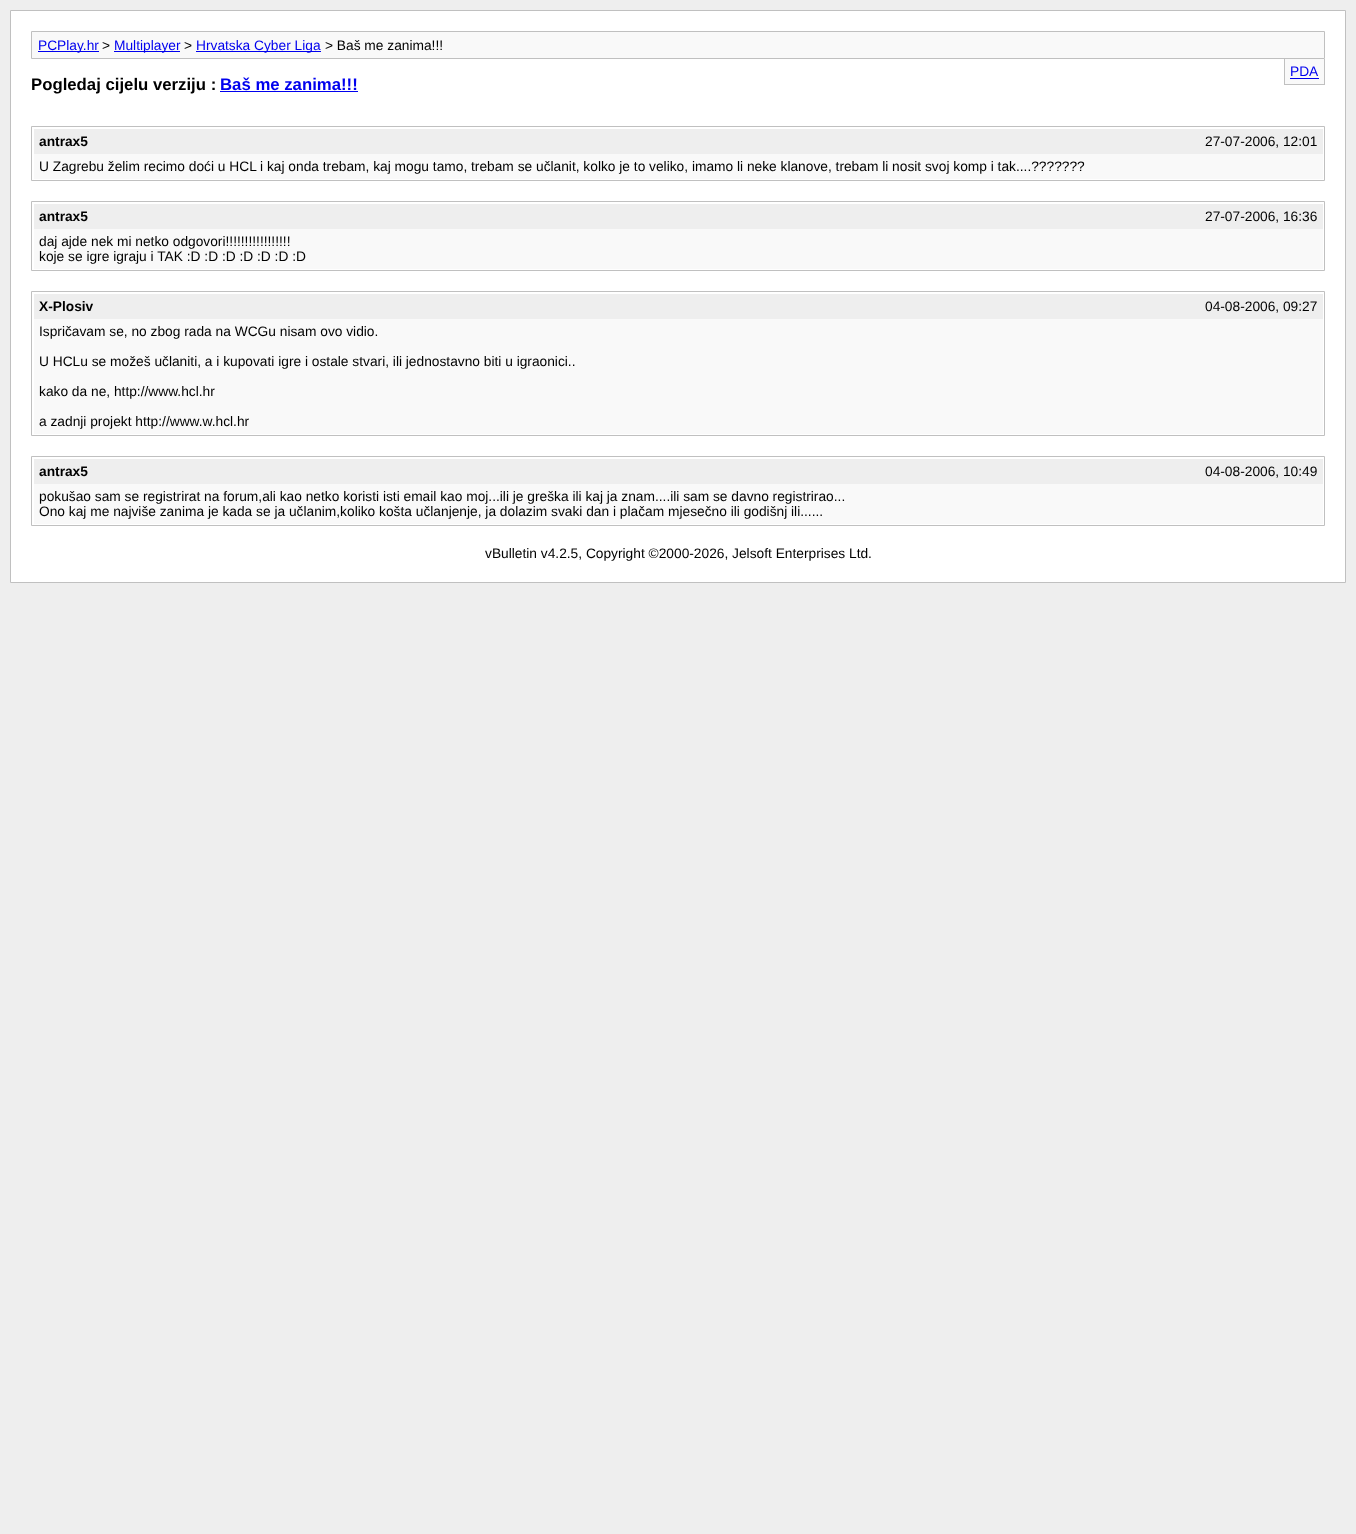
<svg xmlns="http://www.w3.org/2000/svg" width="1356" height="1534">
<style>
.a{font:13.75px Liberation Sans;fill:#00e}
.b{font:13.75px Liberation Sans;fill:#000}
.c{font:bold 16.75px Liberation Sans;fill:#000}
.d{font:bold 16.75px Liberation Sans;fill:#00e}
.e{font:bold 13.75px Liberation Sans;fill:#000}
</style>
<rect width="100%" height="100%" fill="#eee"/>
<path fill="#fff" stroke="#c0c0c0" d="M10.5 10.5h1335v572H10.5z"/>
<path fill="#f9f9f9" stroke="#c0c0c0" d="M31.5 31.5h1293v27H31.5z"/>
<path fill="#00e" d="M38 51h61v1H38z"/>
<path fill="#00e" d="M114 51h66v1H114z"/>
<path fill="#00e" d="M196 51h125v1H196z"/>
<path fill="#f9f9f9" d="M1285 59h39v25H1285z"/>
<path fill="#c0c0c0" d="M1324 59h1v26H1324z"/>
<path fill="#c0c0c0" d="M1284 84h41v1H1284z"/>
<path fill="#c0c0c0" d="M1284 59h1v26H1284z"/>
<path fill="#00e" d="M1290 78h29v1H1290z"/>
<path fill="#00e" d="M220 91h138v1H220z"/>
<path fill="none" stroke="#c0c0c0" d="M31.5 126.5h1293v54H31.5z"/>
<path fill="#eee" d="M34 129h1289v25H34z"/>
<path fill="#f9f9f9" d="M34 154h1289v25H34z"/>
<path fill="none" stroke="#c0c0c0" d="M31.5 201.5h1293v69H31.5z"/>
<path fill="#eee" d="M34 204h1289v25H34z"/>
<path fill="#f9f9f9" d="M34 229h1289v40H34z"/>
<path fill="none" stroke="#c0c0c0" d="M31.5 291.5h1293v144H31.5z"/>
<path fill="#eee" d="M34 294h1289v25H34z"/>
<path fill="#f9f9f9" d="M34 319h1289v115H34z"/>
<path fill="none" stroke="#c0c0c0" d="M31.5 456.5h1293v69H31.5z"/>
<path fill="#eee" d="M34 459h1289v25H34z"/>
<path fill="#f9f9f9" d="M34 484h1289v40H34z"/>
<text class="a" x="38" y="50">PCPlay.hr</text>
<text class="b" x="102" y="50">&gt;</text>
<text class="a" x="114" y="50">Multiplayer</text>
<text class="b" x="184" y="50">&gt;</text>
<text class="a" x="196" y="50">Hrvatska Cyber Liga</text>
<text class="b" x="325" y="50">&gt; Baš me zanima!!!</text>
<text class="a" x="1290" y="76">PDA</text>
<text class="c" x="31" y="90">Pogledaj cijelu verziju :</text>
<text class="d" x="220" y="90">Baš me zanima!!!</text>
<text class="e" x="39" y="146">antrax5</text>
<text class="b" x="1205" y="146">27-07-2006, 12:01</text>
<text class="b" x="39" y="171">U Zagrebu želim recimo doći u HCL i kaj onda trebam, kaj mogu tamo, trebam se učlanit, kolko je to veliko, imamo li neke klanove, trebam li nosit svoj komp i tak....???????</text>
<text class="e" x="39" y="221">antrax5</text>
<text class="b" x="1205" y="221">27-07-2006, 16:36</text>
<text class="b" x="39" y="246">daj ajde nek mi netko odgovori!!!!!!!!!!!!!!!!!</text>
<text class="b" x="39" y="261">koje se igre igraju i TAK :D :D :D :D :D :D :D</text>
<text class="e" x="39" y="311">X-Plosiv</text>
<text class="b" x="1205" y="311">04-08-2006, 09:27</text>
<text class="b" x="39" y="336">Ispričavam se, no zbog rada na WCGu nisam ovo vidio.</text>
<text class="b" x="39" y="366">U HCLu se možeš učlaniti, a i kupovati igre i ostale stvari, ili jednostavno biti u igraonici..</text>
<text class="b" x="39" y="396">kako da ne, http://www.hcl.hr</text>
<text class="b" x="39" y="426">a zadnji projekt http://www.w.hcl.hr</text>
<text class="e" x="39" y="476">antrax5</text>
<text class="b" x="1205" y="476">04-08-2006, 10:49</text>
<text class="b" x="39" y="501">pokušao sam se registrirat na forum,ali kao netko koristi isti email kao moj...ili je greška ili kaj ja znam....ili sam se davno registrirao...</text>
<text class="b" x="39" y="516">Ono kaj me najviše zanima je kada se ja učlanim,koliko košta učlanjenje, ja dolazim svaki dan i plačam mjesečno ili godišnj ili......</text>
<text class="b" x="485" y="558">vBulletin v4.2.5, Copyright ©2000-2026, Jelsoft Enterprises Ltd.</text>
</svg>
